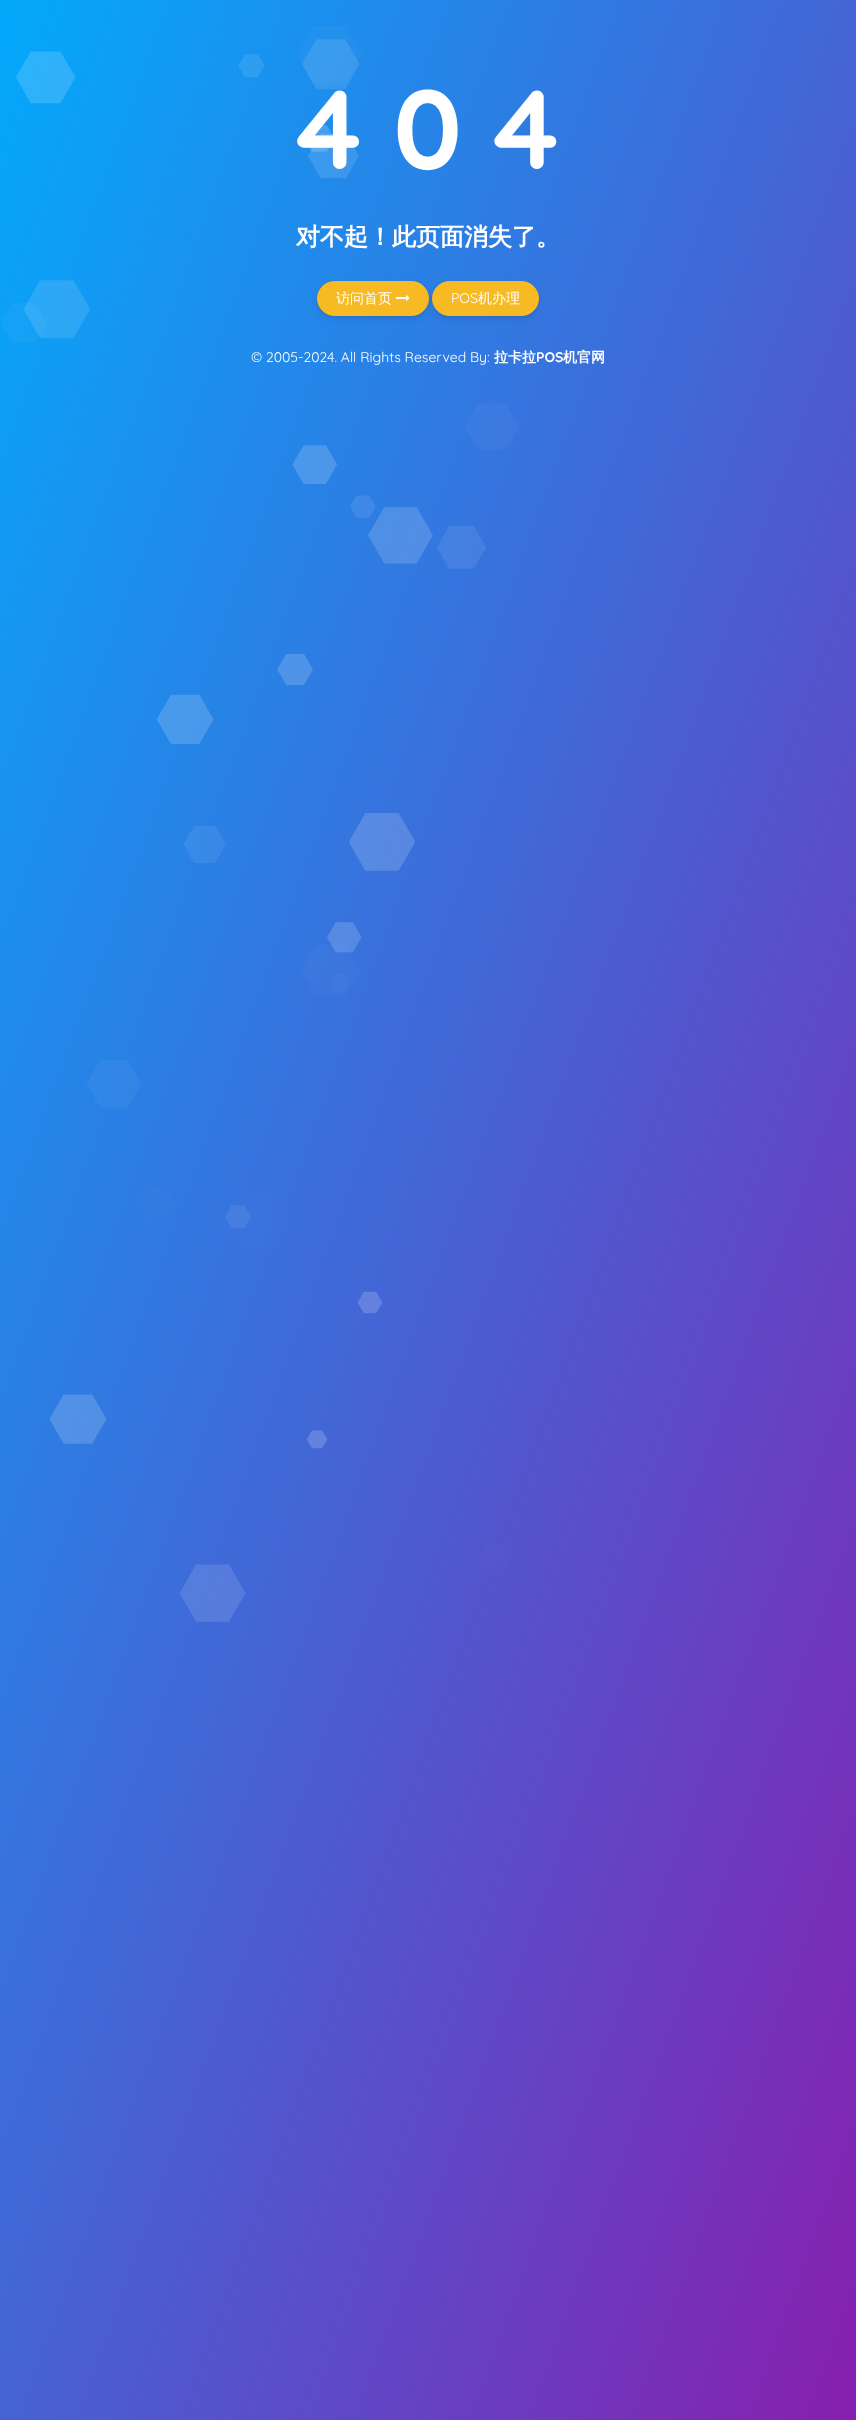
<svg xmlns="http://www.w3.org/2000/svg" width="856" height="2420">
<style>
.a{font:bold 112px Quicksand;fill:#fff}
.b{font:bold 24px WenQuanYi Zen Hei;fill:#fff}
.c{font:500 14px WenQuanYi Zen Hei;fill:#fff}
.d{font:14px Quicksand;fill:#fff}
.e{font:bold 14px WenQuanYi Zen Hei;fill:#fff}
.f{font:bold 14px Quicksand;fill:#fff}
</style>
<defs>
<linearGradient id="g1" gradientUnits="userSpaceOnUse" x1="-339" y1="931" x2="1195" y2="1489"><stop offset="0.01" stop-color="#04a8fb"/><stop offset="1" stop-color="#871faf"/></linearGradient>
</defs>
<rect width="100%" height="100%" fill="#fff"/>
<path fill="url(#g1)" d="M0 0h856v2420H0z"/>
<image href="1.png" x="1" y="26" width="518" height="1596"/>
<rect fill="#00000014" filter="blur(1.5px)" x="317" y="282" width="112" height="35" rx="17.5"/>
<rect fill="#32325d1c" filter="blur(3px)" x="317" y="285" width="112" height="35" rx="17.5"/>
<rect fill="#f7ba22" stroke="#f7ba22" x="317.5" y="281.5" width="111" height="34" rx="17"/>
<image href="2.png" x="396" y="295" width="14" height="6"/>
<rect fill="#00000014" filter="blur(1.5px)" x="432" y="282" width="107" height="35" rx="17.5"/>
<rect fill="#32325d1c" filter="blur(3px)" x="432" y="285" width="107" height="35" rx="17.5"/>
<rect fill="#f7ba22" stroke="#f7ba22" x="432.5" y="281.5" width="106" height="34" rx="17"/>
<text class="a" x="296" y="169">4 0 4</text>
<text class="b" x="296" y="245">对不起！此页面消失了。</text>
<text class="c" x="336" y="303">访问首页</text>
<text class="d" x="451" y="303">POS</text>
<text class="c" x="478" y="303">机办理</text>
<text class="d" x="251" y="362">© 2005-2024. All Rights Reserved By:</text>
<text class="e" x="494" y="362">拉卡拉</text>
<text class="f" x="536" y="362">POS</text>
<text class="e" x="563" y="362">机官网</text>
</svg>
